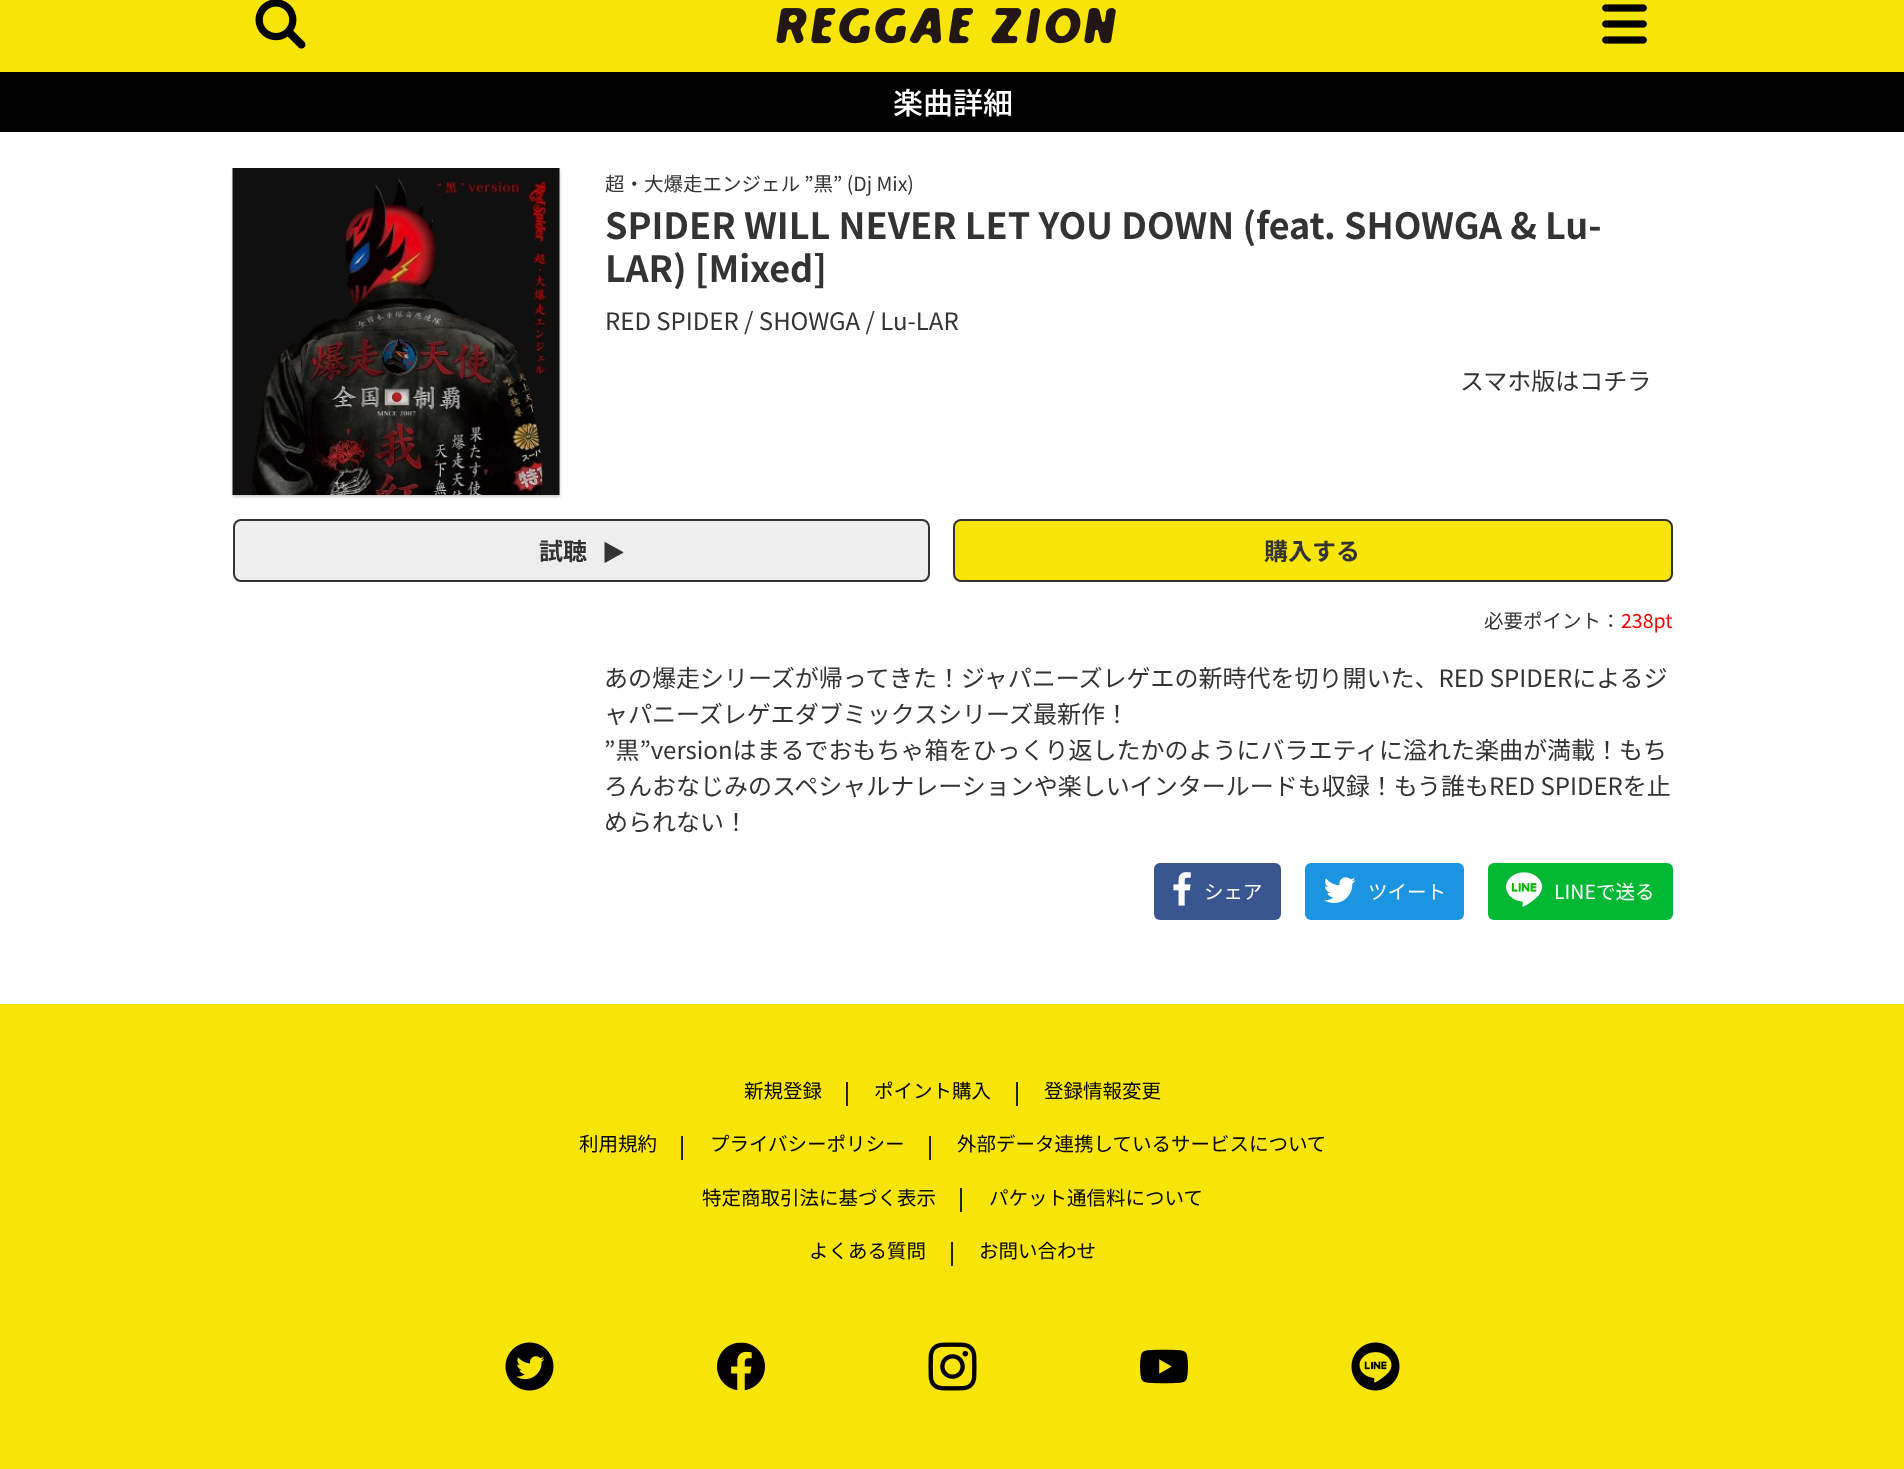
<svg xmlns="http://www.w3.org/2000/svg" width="1904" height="1469">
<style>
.a{font:500 30px Noto Sans JP;fill:#fff}
.b{font:19.5px Noto Sans JP;fill:#333}
.c{font:bold 36px Noto Sans JP;fill:#333}
.d{font:24px Noto Sans JP;fill:#333}
.e{font:bold 24px Noto Sans JP;fill:#333}
.f{font:19.5px Noto Sans JP;fill:#f00}
.g{font:19.5px Noto Sans JP;fill:#fff}
.h{font:19.5px Noto Sans JP;fill:#000}
</style>
<rect width="100%" height="100%" fill="#fff"/>
<path fill="#f7e409" d="M0 0h1904v72H0z"/>
<image href="1.png" x="255" y="0" width="51" height="49"/>
<image href="2.png" x="776" y="8" width="340" height="36"/>
<image href="3.png" x="1602" y="4" width="45" height="40"/>
<path fill="#000" d="M0 72h1904v60H0z"/>
<path fill="#00000033" filter="blur(1.5px)" d="M233 170h327v327H233z"/>
<image href="4.png" x="232" y="168" width="328" height="327"/>
<rect fill="#eee" stroke="#333" stroke-width="2" x="234" y="520" width="695" height="61" rx="7"/>
<image href="5.png" x="604" y="542" width="20" height="21"/>
<rect fill="#f7e409" stroke="#333" stroke-width="2" x="954" y="520" width="718" height="61" rx="7"/>
<rect fill="#395691" x="1154" y="863" width="127" height="57" rx="6"/>
<image href="6.png" x="1173" y="872" width="18" height="34"/>
<rect fill="#1b95e0" x="1305" y="863" width="159" height="57" rx="6"/>
<image href="7.png" x="1324" y="877" width="32" height="26"/>
<rect fill="#00b833" x="1488" y="863" width="185" height="57" rx="6"/>
<image href="8.png" x="1506" y="872" width="36" height="35"/>
<path fill="#f7e409" d="M0 1004h1904v465H0z"/>
<path fill="#222" d="M846 1082h2v24H846z"/>
<path fill="#222" d="M1016 1082h2v24H1016z"/>
<path fill="#222" d="M681 1136h2v24H681z"/>
<path fill="#222" d="M929 1136h2v24H929z"/>
<path fill="#222" d="M960 1188h2v24H960z"/>
<path fill="#222" d="M951 1242h2v24H951z"/>
<image href="9.png" x="505" y="1342" width="49" height="49"/>
<image href="10.png" x="717" y="1342" width="48" height="49"/>
<image href="11.png" x="928" y="1342" width="49" height="49"/>
<image href="12.png" x="1140" y="1349" width="48" height="35"/>
<image href="13.png" x="1351" y="1342" width="49" height="49"/>
<text class="a" x="893" y="114">楽曲詳細</text>
<text class="b" x="605" y="191">超・大爆走エンジェル ”黒” (Dj Mix)</text>
<text class="c" x="605" y="239">SPIDER WILL NEVER LET YOU DOWN (feat. SHOWGA &amp; Lu-</text>
<text class="c" x="605" y="282">LAR) [Mixed]</text>
<text class="d" x="605" y="330">RED SPIDER / SHOWGA / Lu-LAR</text>
<text class="d" x="1460" y="390">スマホ版はコチラ</text>
<text class="e" x="539" y="560">試聴</text>
<text class="e" x="1264" y="560">購入する</text>
<text class="b" x="1484" y="628">必要ポイント：</text>
<text class="f" x="1621" y="628">238pt</text>
<text class="d" x="604" y="687">あの爆走シリーズが帰ってきた！ジャパニーズレゲエの新時代を切り開いた、RED SPIDERによるジ</text>
<text class="d" x="604" y="723">ャパニーズレゲエダブミックスシリーズ最新作！</text>
<text class="d" x="604" y="759">”黒”versionはまるでおもちゃ箱をひっくり返したかのようにバラエティに溢れた楽曲が満載！もち</text>
<text class="d" x="604" y="795">ろんおなじみのスペシャルナレーションや楽しいインタールードも収録！もう誰もRED SPIDERを止</text>
<text class="d" x="604" y="831">められない！</text>
<text class="g" x="1204" y="899">シェア</text>
<text class="g" x="1368" y="899">ツイート</text>
<text class="g" x="1554" y="899">LINEで送る</text>
<text class="h" x="744" y="1098">新規登録</text>
<text class="h" x="874" y="1098">ポイント購入</text>
<text class="h" x="1044" y="1098">登録情報変更</text>
<text class="h" x="579" y="1151">利用規約</text>
<text class="h" x="710" y="1151">プライバシーポリシー</text>
<text class="h" x="957" y="1151">外部データ連携しているサービスについて</text>
<text class="h" x="702" y="1205">特定商取引法に基づく表示</text>
<text class="h" x="989" y="1205">パケット通信料について</text>
<text class="h" x="809" y="1258">よくある質問</text>
<text class="h" x="979" y="1258">お問い合わせ</text>
</svg>
